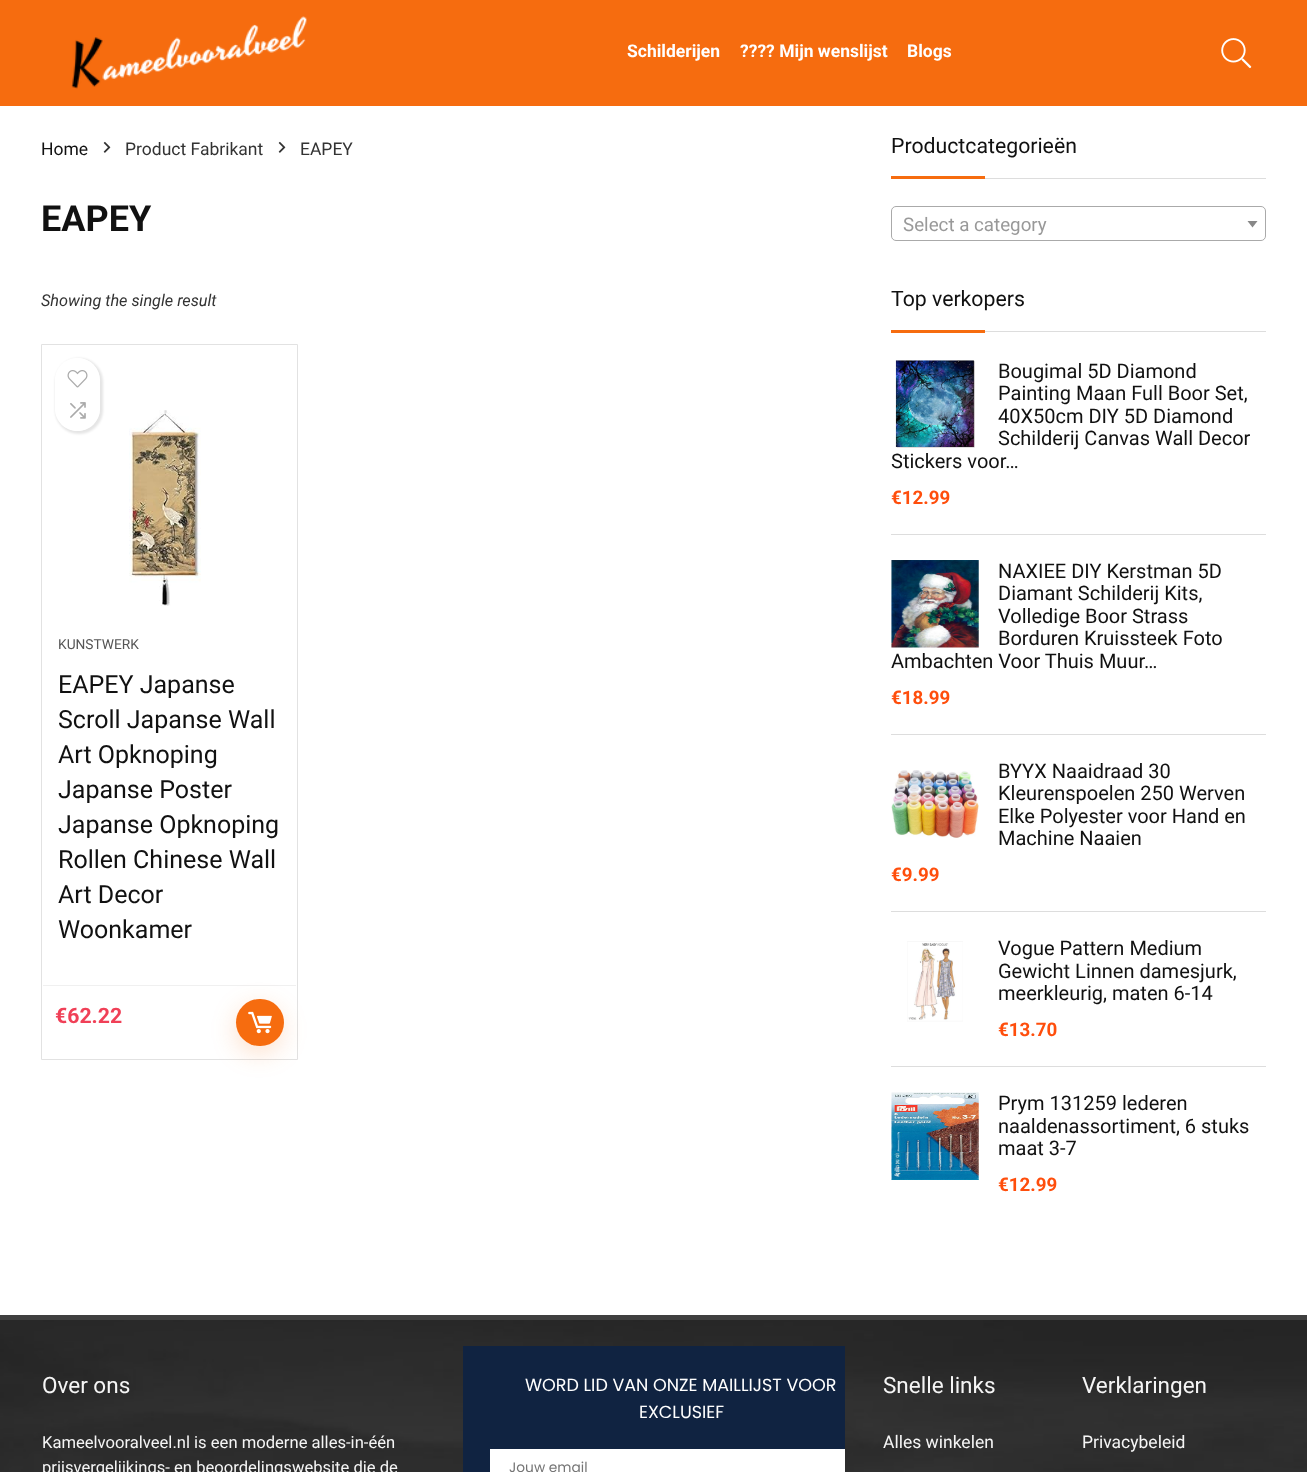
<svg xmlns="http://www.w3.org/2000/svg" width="1307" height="1472">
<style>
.a{font:bold 17.5px Roboto;fill:#fff}
.b{font:17.5px Roboto;fill:#111}
.c{font:17.5px Roboto;fill:#333}
.d{font:bold 36px Roboto;fill:#111}
.e{font:italic 16.25px Roboto;fill:#333}
.f{font:13.75px Roboto;fill:#555}
.g{font:25px Roboto;fill:#111}
.h{font:bold 21.25px Roboto;fill:#f04057}
.i{font:21.25px Roboto;fill:#111}
.j{font:18.75px Roboto;fill:#999}
.k{font:20px Roboto;fill:#111}
.l{font:bold 18.75px Roboto;fill:#ff4e0c}
.m{font:22.5px Roboto;fill:#f5f5f5}
.n{font:16.6px Roboto;fill:#f5f5f5}
.o{font:17.5px Poppins;fill:#fff}
.p{font:13.75px Poppins;fill:#757575}
.q{font:17.5px Roboto;fill:#f5f5f5}
</style>
<defs>
<clipPath id="clip1"><path d="M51 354h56v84h-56zm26.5 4c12.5 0 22.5 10 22.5 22.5v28c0 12.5-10 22.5-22.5 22.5c-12.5 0-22.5-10-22.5-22.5v-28c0-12.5 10-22.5 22.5-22.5z" clip-rule="evenodd"/></clipPath>
</defs>
<rect width="100%" height="100%" fill="#fff"/>
<path fill="#f66c0f" d="M0 0h1307v106H0z"/>
<image href="1.png" x="71" y="16" width="236" height="73"/>
<image href="2.png" x="1221" y="38" width="31" height="31"/>
<image href="3.png" x="103" y="141" width="8" height="12"/>
<image href="3.png" x="278" y="141" width="8" height="12"/>
<path fill="none" stroke="#e2e2e2" d="M41.5 344.5h256v715H41.5z"/>
<g clip-path="url(#clip1)">
<rect fill="#0000001a" filter="blur(1px)" x="55" y="358" width="48" height="76" rx="24"/>
</g>
<rect fill="#ffffffc7" x="55" y="358" width="45" height="73" rx="22.5"/>
<image href="4.png" x="67" y="370" width="21" height="18"/>
<image href="5.png" x="70" y="402" width="16" height="17"/>
<image href="6.png" x="129" y="410" width="72" height="196"/>
<path fill="#f0f0f0" d="M43 985h253v1H43z"/>
<rect fill="#f66c0f33" filter="blur(12px)" x="235" y="1006" width="48" height="48" rx="24"/>
<rect fill="#f66c0f" x="236" y="999" width="48" height="47" rx="23.5"/>
<image href="7.png" x="248" y="1011" width="24" height="23"/>
<path fill="#ddd" d="M985 178h281v1H985z"/>
<path fill="#f66c0f" d="M891 176h94v3H891z"/>
<rect fill="none" stroke="#aaa" x="891.5" y="206.5" width="374" height="34" rx="4.5"/>
<path fill="#888" d="M1247.5 221h10l-5 6.5z"/>
<path fill="#ddd" d="M985 331h281v1H985z"/>
<path fill="#f66c0f" d="M891 330h94v3H891z"/>
<path fill="#ddd" d="M891 534h375v1H891z"/>
<image href="8.png" x="895" y="360" width="80" height="88"/>
<path fill="#ddd" d="M891 734h375v1H891z"/>
<image href="9.png" x="891" y="560" width="88" height="88"/>
<path fill="#ddd" d="M891 911h375v1H891z"/>
<image href="10.png" x="891" y="770" width="88" height="68"/>
<path fill="#ddd" d="M891 1066h375v1H891z"/>
<image href="11.png" x="907" y="941" width="56" height="81"/>
<image href="12.png" x="891" y="1092" width="88" height="88"/>
<path fill="#3f3f3f" d="M0 1315h1307v5H0z"/>
<image href="13.png" x="0" y="1320" width="1307" height="152"/>
<path fill="#102341" d="M463 1346h382v126H463z"/>
<path fill="#fff" d="M490 1449h355v23H490z"/>
<text class="a" x="627" y="57">Schilderijen</text>
<text class="a" x="740" y="57">???? Mijn wenslijst</text>
<text class="a" x="907" y="57">Blogs</text>
<text class="b" x="41" y="155">Home</text>
<text class="c" x="125" y="155">Product Fabrikant</text>
<text class="c" x="300" y="155">EAPEY</text>
<text class="d" x="41" y="231">EAPEY</text>
<text class="e" x="41" y="306">Showing the single result</text>
<text class="f" x="58" y="649">KUNSTWERK</text>
<text class="g" x="58" y="693">EAPEY Japanse</text>
<text class="g" x="58" y="728">Scroll Japanse Wall</text>
<text class="g" x="58" y="763">Art Opknoping</text>
<text class="g" x="58" y="798">Japanse Poster</text>
<text class="g" x="58" y="833">Japanse Opknoping</text>
<text class="g" x="58" y="868">Rollen Chinese Wall</text>
<text class="g" x="58" y="903">Art Decor</text>
<text class="g" x="58" y="938">Woonkamer</text>
<text class="h" x="55" y="1023">€62.22</text>
<text class="i" x="891" y="153">Productcategorieën</text>
<text class="j" x="903" y="231">Select a category</text>
<text class="i" x="891" y="306">Top verkopers</text>
<text class="k" x="998" y="378">Bougimal 5D Diamond</text>
<text class="k" x="998" y="400">Painting Maan Full Boor Set,</text>
<text class="k" x="998" y="423">40X50cm DIY 5D Diamond</text>
<text class="k" x="998" y="445">Schilderij Canvas Wall Decor</text>
<text class="k" x="891" y="468">Stickers voor…</text>
<text class="l" x="891" y="504">€12.99</text>
<text class="k" x="998" y="578">NAXIEE DIY Kerstman 5D</text>
<text class="k" x="998" y="600">Diamant Schilderij Kits,</text>
<text class="k" x="998" y="623">Volledige Boor Strass</text>
<text class="k" x="998" y="645">Borduren Kruissteek Foto</text>
<text class="k" x="891" y="668">Ambachten Voor Thuis Muur…</text>
<text class="l" x="891" y="704">€18.99</text>
<text class="k" x="998" y="778">BYYX Naaidraad 30</text>
<text class="k" x="998" y="800">Kleurenspoelen 250 Werven</text>
<text class="k" x="998" y="823">Elke Polyester voor Hand en</text>
<text class="k" x="998" y="845">Machine Naaien</text>
<text class="l" x="891" y="881">€9.99</text>
<text class="k" x="998" y="955">Vogue Pattern Medium</text>
<text class="k" x="998" y="978">Gewicht Linnen damesjurk,</text>
<text class="k" x="998" y="1000">meerkleurig, maten 6-14</text>
<text class="l" x="998" y="1036">€13.70</text>
<text class="k" x="998" y="1110">Prym 131259 lederen</text>
<text class="k" x="998" y="1133">naaldenassortiment, 6 stuks</text>
<text class="k" x="998" y="1155">maat 3-7</text>
<text class="l" x="998" y="1191">€12.99</text>
<text class="m" x="42" y="1393">Over ons</text>
<text class="n" x="42" y="1448">Kameelvooralveel.nl is een moderne alles-in-één</text>
<text class="n" x="42" y="1473">prijsvergelijkings- en beoordelingswebsite die de</text>
<text class="o" x="525" y="1391">WORD LID VAN ONZE MAILLIJST VOOR</text>
<text class="o" x="639" y="1418">EXCLUSIEF</text>
<text class="p" x="509" y="1472">Jouw email</text>
<text class="m" x="883" y="1393">Snelle links</text>
<text class="q" x="883" y="1448">Alles winkelen</text>
<text class="m" x="1082" y="1393">Verklaringen</text>
<text class="q" x="1082" y="1448">Privacybeleid</text>
</svg>
